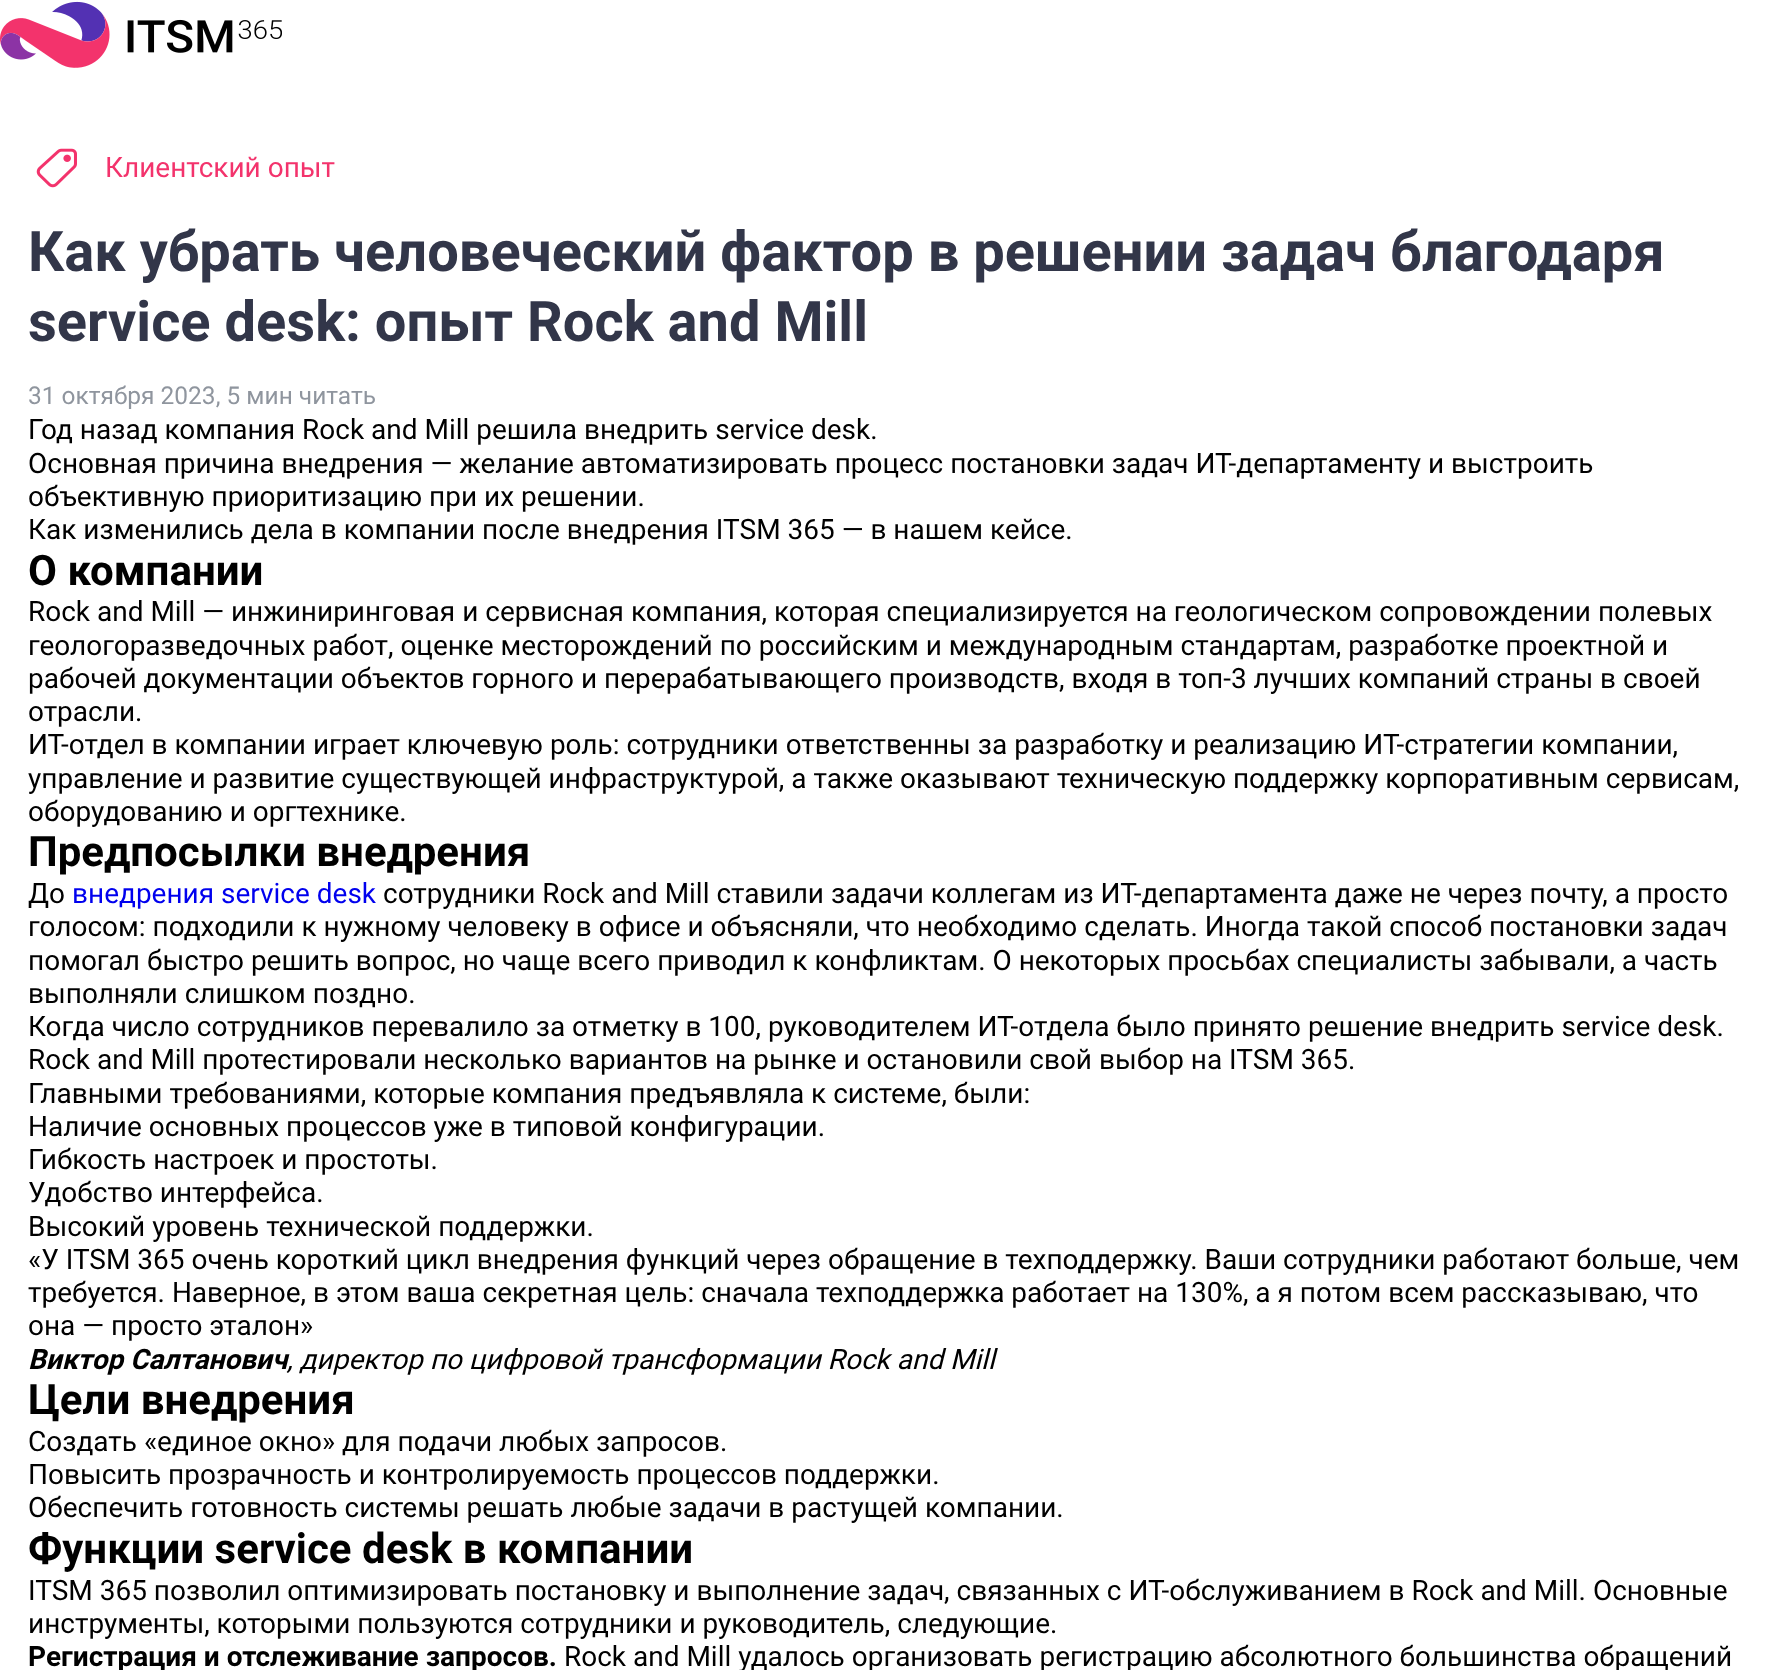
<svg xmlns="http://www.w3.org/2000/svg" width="1773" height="1670">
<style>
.a{font:28px Roboto;fill:#f3336c}
.b{font:bold 56px Roboto;fill:#323649}
.c{font:24.5px Roboto;fill:#8f959e}
.d{font:28px Roboto;fill:#000}
.e{font:bold 42px Roboto;fill:#000}
.f{font:28px Roboto;fill:#00e}
.g{font:italic bold 28px Roboto;fill:#000}
.h{font:italic 28px Roboto;fill:#000}
.i{font:bold 28px Roboto;fill:#000}
</style>
<rect width="100%" height="100%" fill="#fff"/>
<image href="1.png" x="0" y="1" width="282" height="67"/>
<image href="2.png" x="36" y="148" width="41" height="40"/>
<text class="a" x="105" y="177">Клиентский опыт</text>
<text class="b" x="28" y="271">Как убрать человеческий фактор в решении задач благодаря</text>
<text class="b" x="28" y="341">service desk: опыт Rock and Mill</text>
<text class="c" x="28" y="404">31 октября 2023, 5 мин читать</text>
<text class="d" x="28" y="439">Год назад компания Rock and Mill решила внедрить service desk.</text>
<text class="d" x="28" y="473">Основная причина внедрения — желание автоматизировать процесс постановки задач ИТ-департаменту и выстроить</text>
<text class="d" x="28" y="506">объективную приоритизацию при их решении.</text>
<text class="d" x="28" y="539">Как изменились дела в компании после внедрения ITSM 365 — в нашем кейсе.</text>
<text class="e" x="28" y="585">О компании</text>
<text class="d" x="28" y="621">Rock and Mill — инжиниринговая и сервисная компания, которая специализируется на геологическом сопровождении полевых</text>
<text class="d" x="28" y="655">геологоразведочных работ, оценке месторождений по российским и международным стандартам, разработке проектной и</text>
<text class="d" x="28" y="688">рабочей документации объектов горного и перерабатывающего производств, входя в топ-3 лучших компаний страны в своей</text>
<text class="d" x="28" y="721">отрасли.</text>
<text class="d" x="28" y="754">ИТ-отдел в компании играет ключевую роль: сотрудники ответственны за разработку и реализацию ИТ-стратегии компании,</text>
<text class="d" x="28" y="788">управление и развитие существующей инфраструктурой, а также оказывают техническую поддержку корпоративным сервисам,</text>
<text class="d" x="28" y="821">оборудованию и оргтехнике.</text>
<text class="e" x="28" y="866">Предпосылки внедрения</text>
<text class="d" x="28" y="903">До</text>
<text class="f" x="72" y="903">внедрения service desk</text>
<text class="d" x="383" y="903">сотрудники Rock and Mill ставили задачи коллегам из ИТ-департамента даже не через почту, а просто</text>
<text class="d" x="28" y="936">голосом: подходили к нужному человеку в офисе и объясняли, что необходимо сделать. Иногда такой способ постановки задач</text>
<text class="d" x="28" y="970">помогал быстро решить вопрос, но чаще всего приводил к конфликтам. О некоторых просьбах специалисты забывали, а часть</text>
<text class="d" x="28" y="1003">выполняли слишком поздно.</text>
<text class="d" x="28" y="1036">Когда число сотрудников перевалило за отметку в 100, руководителем ИТ-отдела было принято решение внедрить service desk.</text>
<text class="d" x="28" y="1069">Rock and Mill протестировали несколько вариантов на рынке и остановили свой выбор на ITSM 365.</text>
<text class="d" x="28" y="1103">Главными требованиями, которые компания предъявляла к системе, были:</text>
<text class="d" x="28" y="1136">Наличие основных процессов уже в типовой конфигурации.</text>
<text class="d" x="28" y="1169">Гибкость настроек и простоты.</text>
<text class="d" x="28" y="1202">Удобство интерфейса.</text>
<text class="d" x="28" y="1236">Высокий уровень технической поддержки.</text>
<text class="d" x="28" y="1269">«У ITSM 365 очень короткий цикл внедрения функций через обращение в техподдержку. Ваши сотрудники работают больше, чем</text>
<text class="d" x="28" y="1302">требуется. Наверное, в этом ваша секретная цель: сначала техподдержка работает на 130%, а я потом всем рассказываю, что</text>
<text class="d" x="28" y="1335">она — просто эталон»</text>
<text class="g" x="28" y="1369">Виктор Салтанович</text>
<text class="h" x="287" y="1369">, директор по цифровой трансформации Rock and Mill</text>
<text class="e" x="28" y="1414">Цели внедрения</text>
<text class="d" x="28" y="1451">Создать «единое окно» для подачи любых запросов.</text>
<text class="d" x="28" y="1484">Повысить прозрачность и контролируемость процессов поддержки.</text>
<text class="d" x="28" y="1517">Обеспечить готовность системы решать любые задачи в растущей компании.</text>
<text class="e" x="28" y="1563">Функции service desk в компании</text>
<text class="d" x="28" y="1600">ITSM 365 позволил оптимизировать постановку и выполнение задач, связанных с ИТ-обслуживанием в Rock and Mill. Основные</text>
<text class="d" x="28" y="1633">инструменты, которыми пользуются сотрудники и руководитель, следующие.</text>
<text class="i" x="28" y="1666">Регистрация и отслеживание запросов.</text>
<text class="d" x="564" y="1666">Rock and Mill удалось организовать регистрацию абсолютного большинства обращений</text>
</svg>
